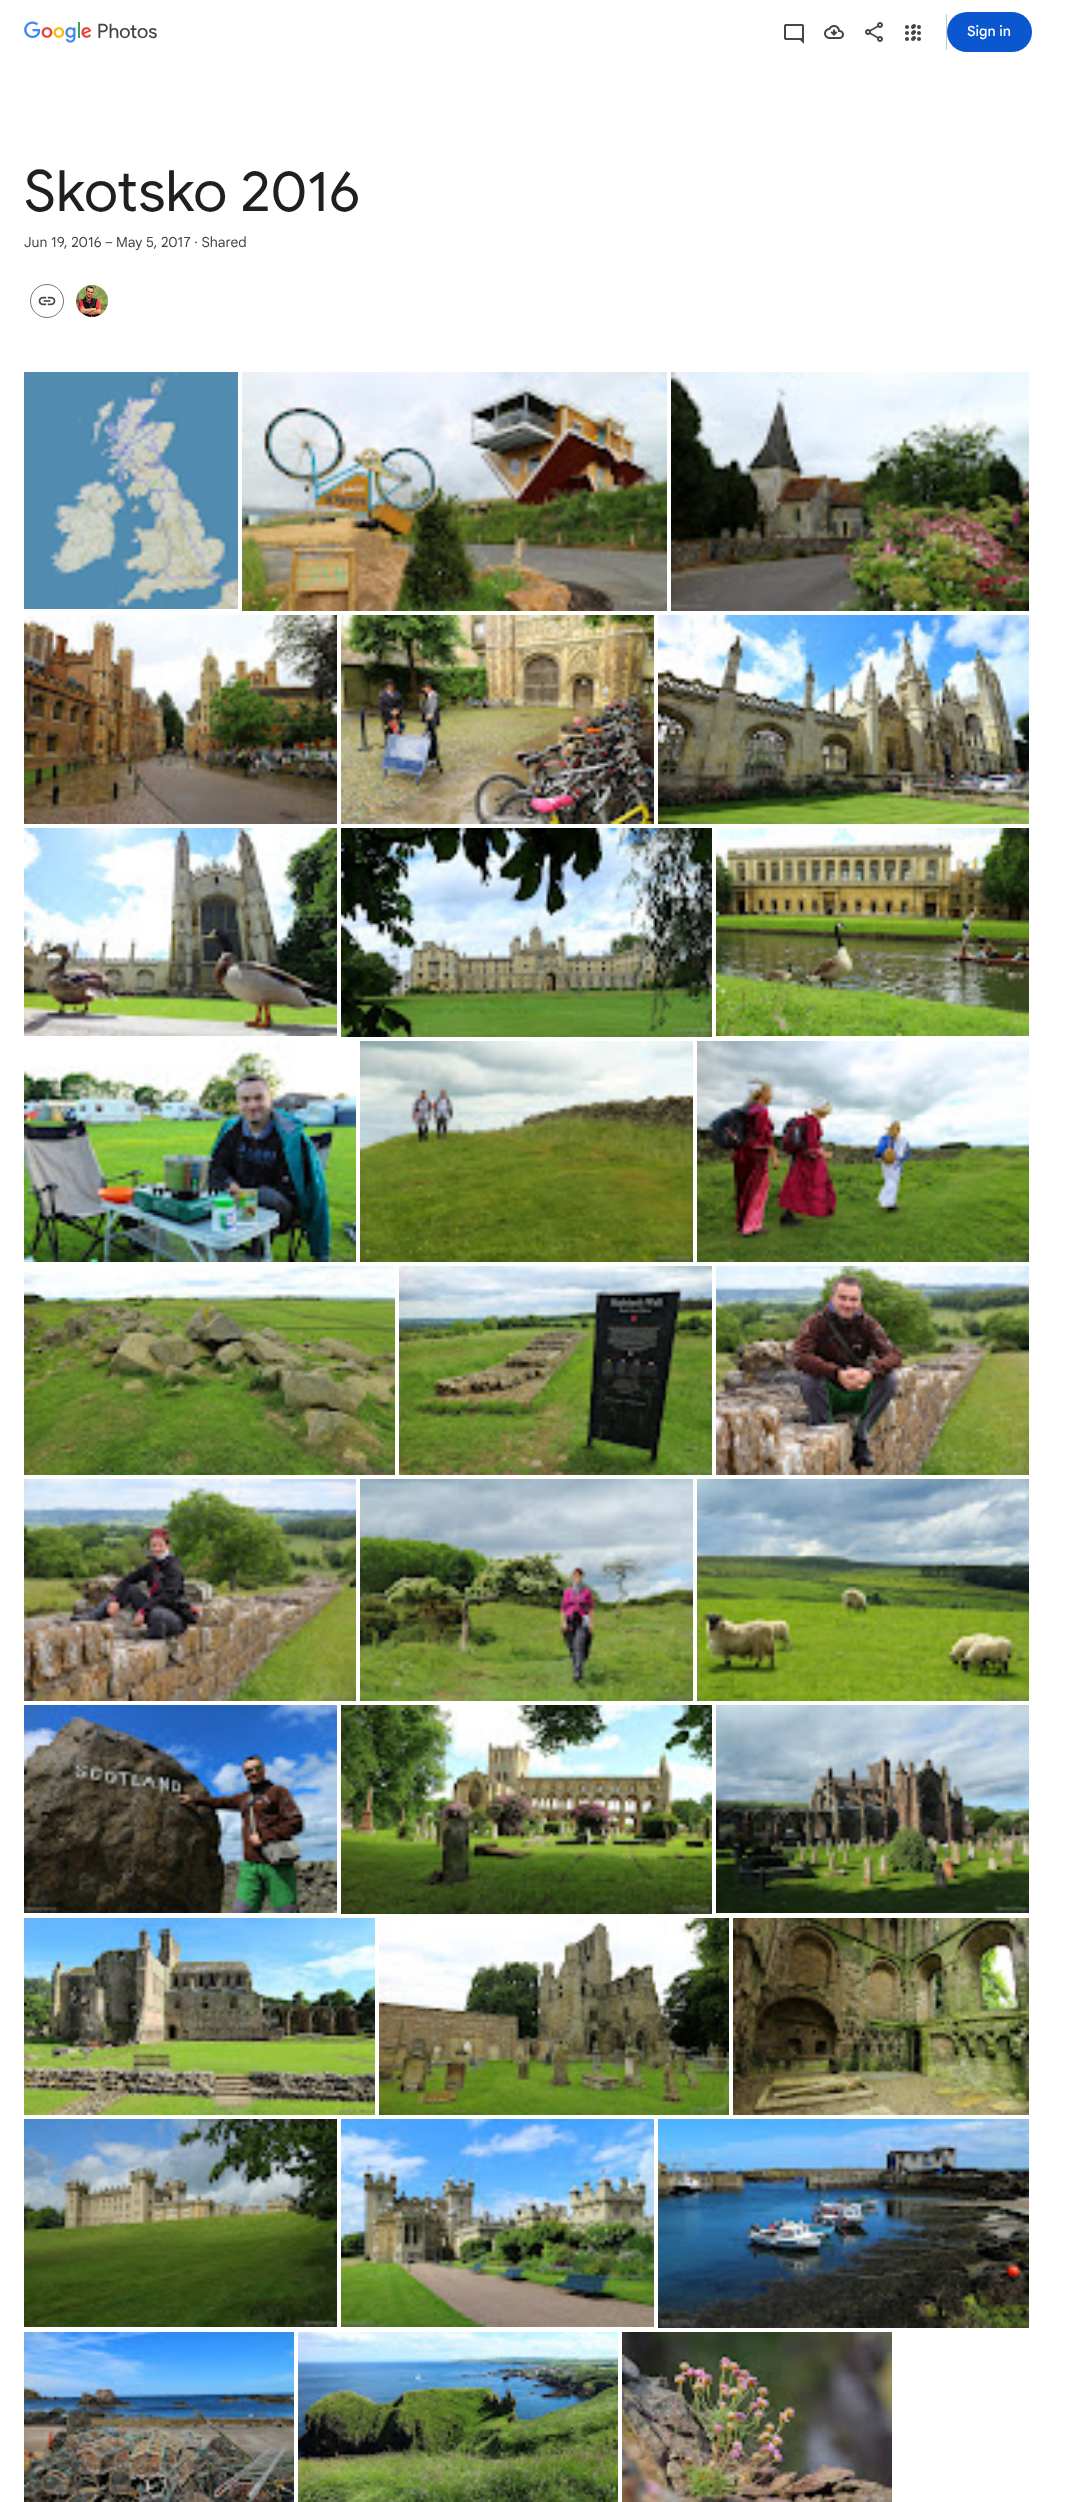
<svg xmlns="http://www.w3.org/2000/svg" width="1068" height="2502">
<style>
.a{font:20px Product Sans;fill:#444746}
.b{font:57px Google Sans;fill:#1f1f1f}
.c{font:14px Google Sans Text;fill:#444746}
.d{font:500 14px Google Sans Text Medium;fill:#fff}
</style>
<rect width="100%" height="100%" fill="#fff"/>
<image href="1.png" x="24" y="21" width="68" height="22"/>
<image href="2.png" x="784" y="24" width="20" height="20"/>
<image href="3.png" x="824" y="25" width="20" height="14"/>
<image href="4.png" x="865" y="22" width="18" height="20"/>
<image href="5.png" x="912" y="24" width="4" height="16"/>
<path fill="#c4c7c5" d="M946 14h1v36H946z"/>
<circle fill="none" stroke="#747775" cx="47" cy="301" r="16.5"/>
<image href="6.png" x="38" y="296" width="18" height="10"/>
<image href="7.png" x="76" y="285" width="32" height="32"/>
<image href="8.png" x="24" y="372" width="214" height="237"/>
<image href="9.png" x="242" y="372" width="425" height="239"/>
<image href="10.png" x="671" y="372" width="358" height="239"/>
<image href="11.png" x="24" y="615" width="313" height="209"/>
<image href="12.png" x="341" y="615" width="313" height="209"/>
<image href="13.png" x="658" y="615" width="371" height="209"/>
<image href="14.png" x="24" y="828" width="313" height="208"/>
<image href="15.png" x="341" y="828" width="371" height="209"/>
<image href="16.png" x="716" y="828" width="313" height="208"/>
<image href="17.png" x="24" y="1041" width="332" height="221"/>
<image href="18.png" x="360" y="1041" width="333" height="221"/>
<image href="19.png" x="697" y="1041" width="332" height="221"/>
<image href="20.png" x="24" y="1266" width="371" height="209"/>
<image href="21.png" x="399" y="1266" width="313" height="209"/>
<image href="22.png" x="716" y="1266" width="313" height="209"/>
<image href="23.png" x="24" y="1479" width="332" height="222"/>
<image href="24.png" x="360" y="1479" width="333" height="222"/>
<image href="25.png" x="697" y="1479" width="332" height="222"/>
<image href="26.png" x="24" y="1705" width="313" height="208"/>
<image href="27.png" x="341" y="1705" width="371" height="209"/>
<image href="28.png" x="716" y="1705" width="313" height="208"/>
<image href="29.png" x="24" y="1918" width="351" height="197"/>
<image href="30.png" x="379" y="1918" width="350" height="197"/>
<image href="31.png" x="733" y="1918" width="296" height="197"/>
<image href="32.png" x="24" y="2119" width="313" height="208"/>
<image href="33.png" x="341" y="2119" width="313" height="208"/>
<image href="34.png" x="658" y="2119" width="371" height="209"/>
<image href="35.png" x="24" y="2332" width="270" height="170"/>
<image href="36.png" x="298" y="2332" width="320" height="170"/>
<image href="37.png" x="622" y="2332" width="270" height="170"/>
<image href="38.png" x="905" y="25" width="16" height="16"/>
<rect fill="#0b57d0" x="947" y="12" width="85" height="40" rx="20"/>
<text class="a" x="97" y="38">Photos</text>
<text class="b" x="24" y="211">Skotsko 2016</text>
<text class="c" x="24" y="247">Jun 19, 2016 – May 5, 2017 · Shared</text>
<text class="d" x="967" y="36">Sign in</text>
</svg>
